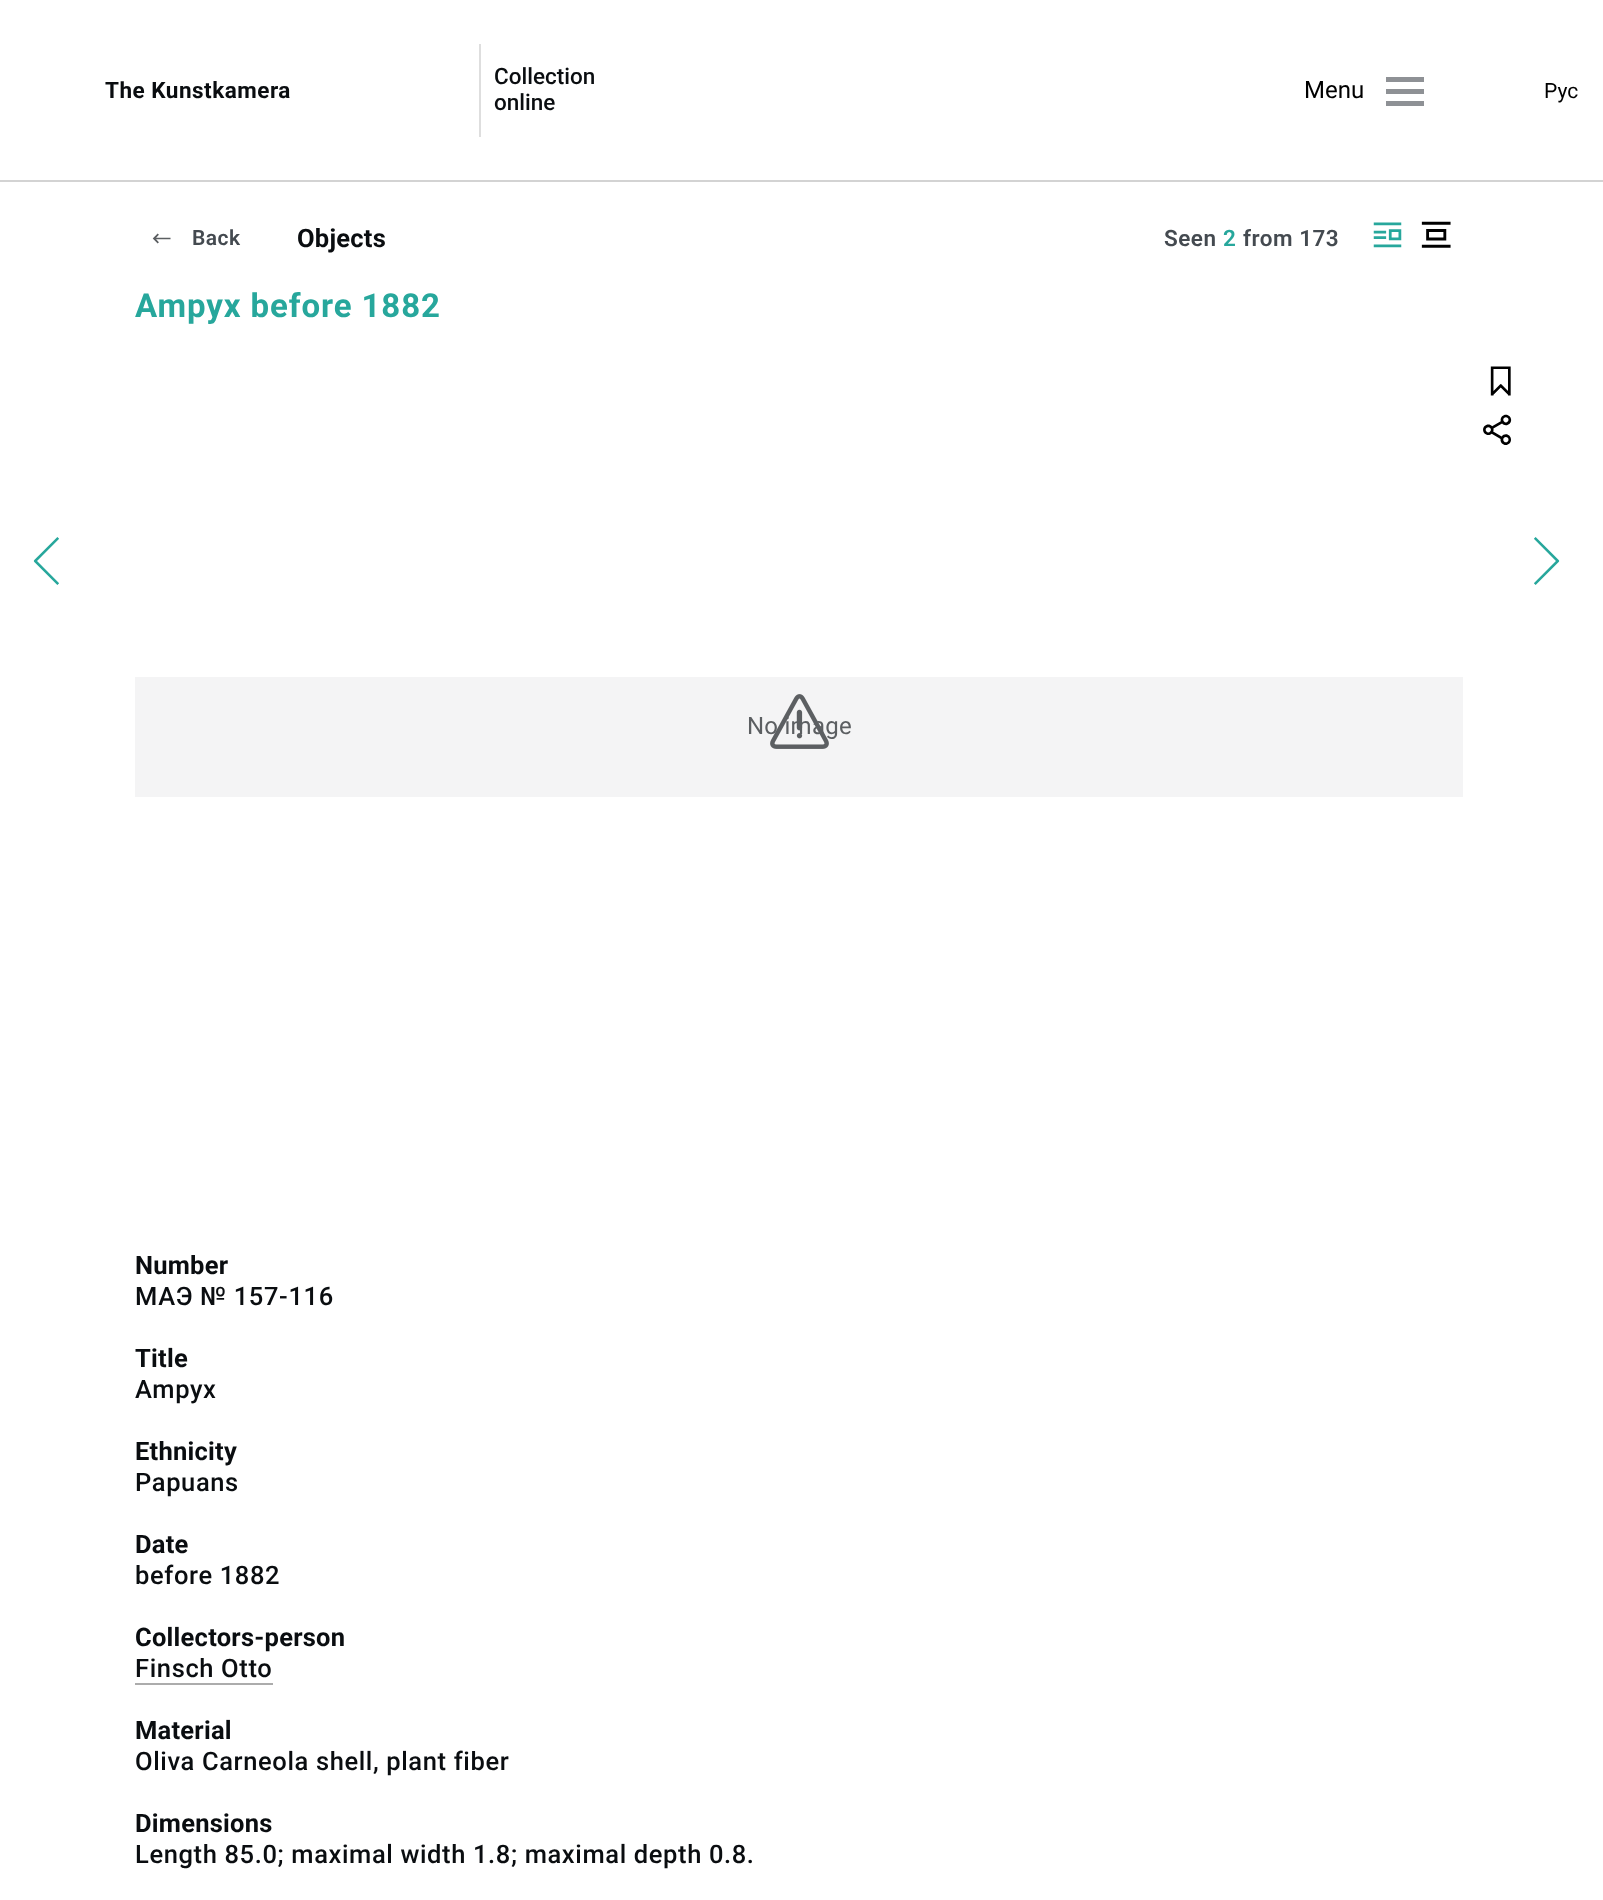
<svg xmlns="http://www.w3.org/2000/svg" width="1603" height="1900">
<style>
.a{font:bold 22.5px Roboto;letter-spacing:0.5px;fill:#0a0d10}
.b{font:500 22.5px Roboto;fill:#0a0d10}
.c{font:24px Roboto;fill:#000}
.d{font:21px Roboto;fill:#000}
.e{font:600 21px Roboto;letter-spacing:0.5px;fill:#444a50}
.f{font:bold 25.5px Roboto;letter-spacing:0.25px;fill:#0a0d10}
.g{font:600 22.5px Roboto;letter-spacing:0.5px;fill:#444a50}
.h{font:600 22.5px Roboto;letter-spacing:0.5px;fill:#27a79c}
.i{font:bold 33px Roboto;letter-spacing:0.9px;fill:#27a79c}
.j{font:24px Roboto;letter-spacing:0.25px;fill:#5c5f62}
.k{font:500 25.5px Roboto;letter-spacing:0.63px;fill:#0a0d10}
</style>
<rect width="100%" height="100%" fill="#fff"/>
<path fill="#d3d3d3" d="M0 180h1603v2H0z"/>
<path fill="#dedede" d="M479 44h2v93H479z"/>
<path fill="#8e9195" d="M1386 77h38v5H1386z"/>
<path fill="#8e9195" d="M1386 89h38v5H1386z"/>
<path fill="#8e9195" d="M1386 101h38v5H1386z"/>
<image href="1.png" x="152" y="233" width="19" height="11"/>
<image href="2.png" x="1373" y="222" width="29" height="26"/>
<image href="3.png" x="1421" y="221" width="30" height="27"/>
<image href="4.png" x="33" y="537" width="26" height="48"/>
<image href="5.png" x="1534" y="537" width="26" height="48"/>
<path fill="#f4f4f5" d="M135 677h1328v120H135z"/>
<image href="7.png" x="1490" y="366" width="21" height="30"/>
<image href="8.png" x="1483" y="414" width="29" height="31"/>
<path fill="#acacac" d="M135 1683h138v2H135z"/>
<text class="a" x="105" y="98">The Kunstkamera</text>
<text class="b" x="494" y="84">Collection</text>
<text class="b" x="494" y="110">online</text>
<text class="c" x="1304" y="98">Menu</text>
<text class="d" x="1544" y="98">Рус</text>
<text class="e" x="192" y="245">Back</text>
<text class="f" x="297" y="247">Objects</text>
<text class="g" x="1164" y="246">Seen</text>
<text class="h" x="1223" y="246">2</text>
<text class="g" x="1243" y="246">from 173</text>
<text class="i" x="135" y="317">Ampyx before 1882</text>
<text class="j" x="747" y="734">No image</text>
<image href="6.png" x="770" y="694" width="59" height="55"/>
<text class="f" x="135" y="1274">Number</text>
<text class="k" x="135" y="1305">МАЭ № 157-116</text>
<text class="f" x="135" y="1367">Title</text>
<text class="k" x="135" y="1398">Ampyx</text>
<text class="f" x="135" y="1460">Ethnicity</text>
<text class="k" x="135" y="1491">Papuans</text>
<text class="f" x="135" y="1553">Date</text>
<text class="k" x="135" y="1584">before 1882</text>
<text class="f" x="135" y="1646">Collectors-person</text>
<text class="k" x="135" y="1677">Finsch Otto</text>
<text class="f" x="135" y="1739">Material</text>
<text class="k" x="135" y="1770">Oliva Carneola shell, plant fiber</text>
<text class="f" x="135" y="1832">Dimensions</text>
<text class="k" x="135" y="1863">Length 85.0; maximal width 1.8; maximal depth 0.8.</text>
</svg>
